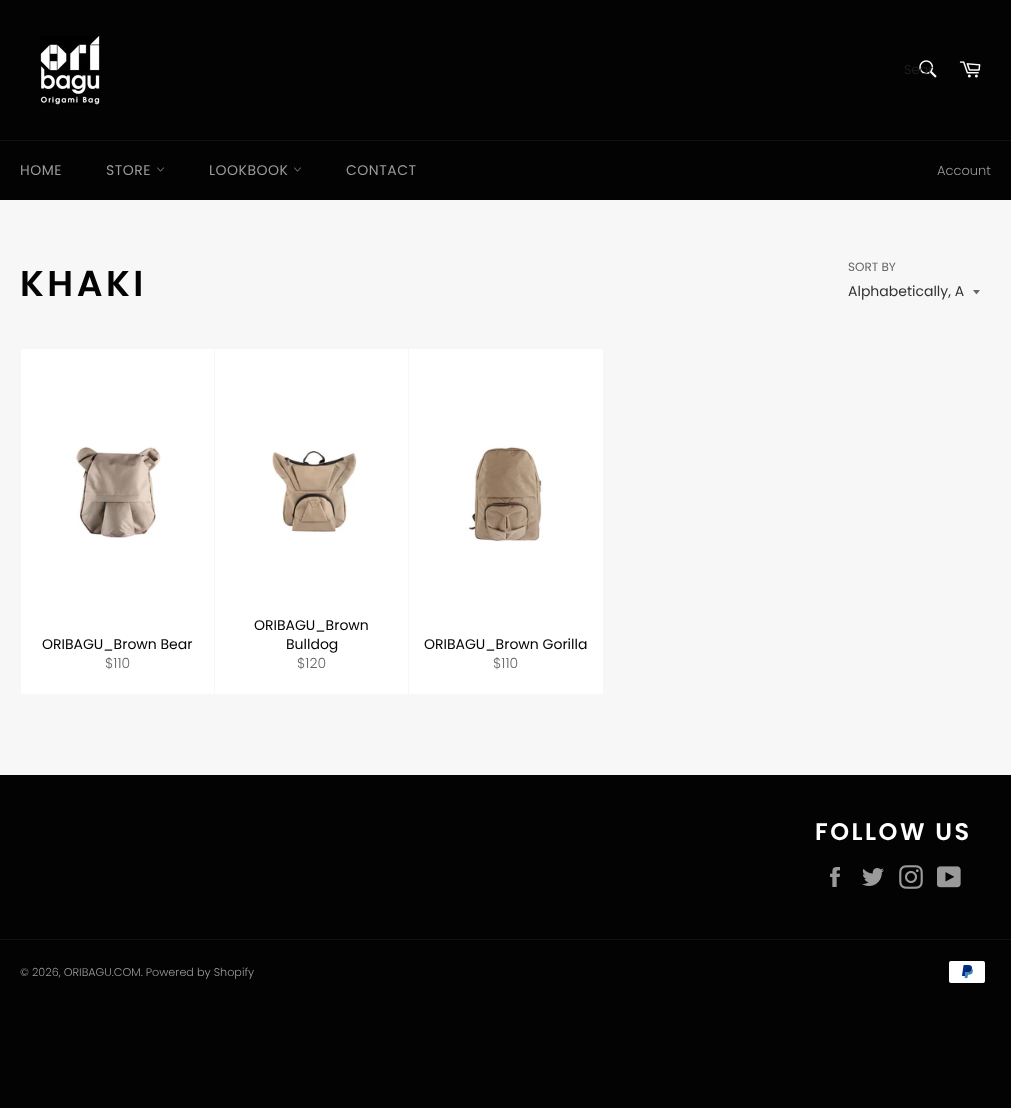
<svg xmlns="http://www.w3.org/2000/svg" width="1011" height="1108">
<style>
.a{font:300 13px Poppins;fill:#222}
.b{font:14px Poppins;letter-spacing:0.5px;fill:#9a9a9a}
.c{font:300 13px Poppins;fill:#9a9a9a}
.d{font:600 36px Poppins;letter-spacing:3.5px;fill:#030303}
.e{font:12px Poppins;fill:#666}
.f{font:14px Poppins;fill:#333}
.g{font:14px Poppins;fill:#030303}
.h{font:300 14px Poppins;fill:#666}
.i{font:600 24px Poppins;letter-spacing:2.5px;fill:#fff}
.j{font:300 11.2px Poppins;fill:#9a9a9a}
</style>
<rect width="100%" height="100%" fill="#030303"/>
<path fill="#f7f7f7" d="M0 200h1011v575H0z"/>
<image href="1.png" x="40" y="36" width="60" height="69"/>
<image href="2.png" x="919" y="60" width="18" height="18"/>
<image href="3.png" x="959" y="61" width="22" height="17"/>
<path fill="#101010" d="M0 140h1011v1H0z"/>
<image href="4.png" x="157" y="167" width="7" height="5"/>
<image href="4.png" x="294" y="167" width="7" height="5"/>
<path fill="#666" d="M973 290c4.5 5.5 2.5 5.5 7 0z"/>
<path fill="#fff" d="M21 349h193v345H21z"/>
<image href="5.png" x="72" y="446" width="89" height="92"/>
<path fill="#fff" d="M215 349h193v345H215z"/>
<image href="6.png" x="272" y="451" width="85" height="83"/>
<path fill="#fff" d="M409 349h194v345H409z"/>
<image href="7.png" x="466" y="446" width="77" height="96"/>
<image href="8.png" x="830" y="867" width="10" height="20"/>
<image href="9.png" x="862" y="868" width="22" height="18"/>
<image href="10.png" x="899" y="865" width="24" height="24"/>
<image href="11.png" x="937" y="866" width="24" height="22"/>
<path fill="#101010" d="M0 939h1011v1H0z"/>
<image href="12.png" x="949" y="961" width="36" height="22"/>
<text class="a" x="904" y="74">Sear</text>
<text class="b" x="20" y="175">HOME</text>
<text class="b" x="106" y="175">STORE</text>
<text class="b" x="209" y="175">LOOKBOOK</text>
<text class="b" x="346" y="175">CONTACT</text>
<text class="c" x="937" y="175">Account</text>
<text class="d" x="20" y="296">KHAKI</text>
<text class="e" x="848" y="271">SORT BY</text>
<text class="f" x="848" y="296">Alphabetically, A</text>
<text class="g" x="42" y="649">ORIBAGU_Brown Bear</text>
<text class="h" x="105" y="668">$110</text>
<text class="g" x="254" y="630">ORIBAGU_Brown</text>
<text class="g" x="286" y="649">Bulldog</text>
<text class="h" x="297" y="668">$120</text>
<text class="g" x="424" y="649">ORIBAGU_Brown Gorilla</text>
<text class="h" x="493" y="668">$110</text>
<text class="i" x="815" y="840">FOLLOW US</text>
<text class="j" x="20" y="976">© 2026, ORIBAGU.COM. Powered by Shopify</text>
</svg>
